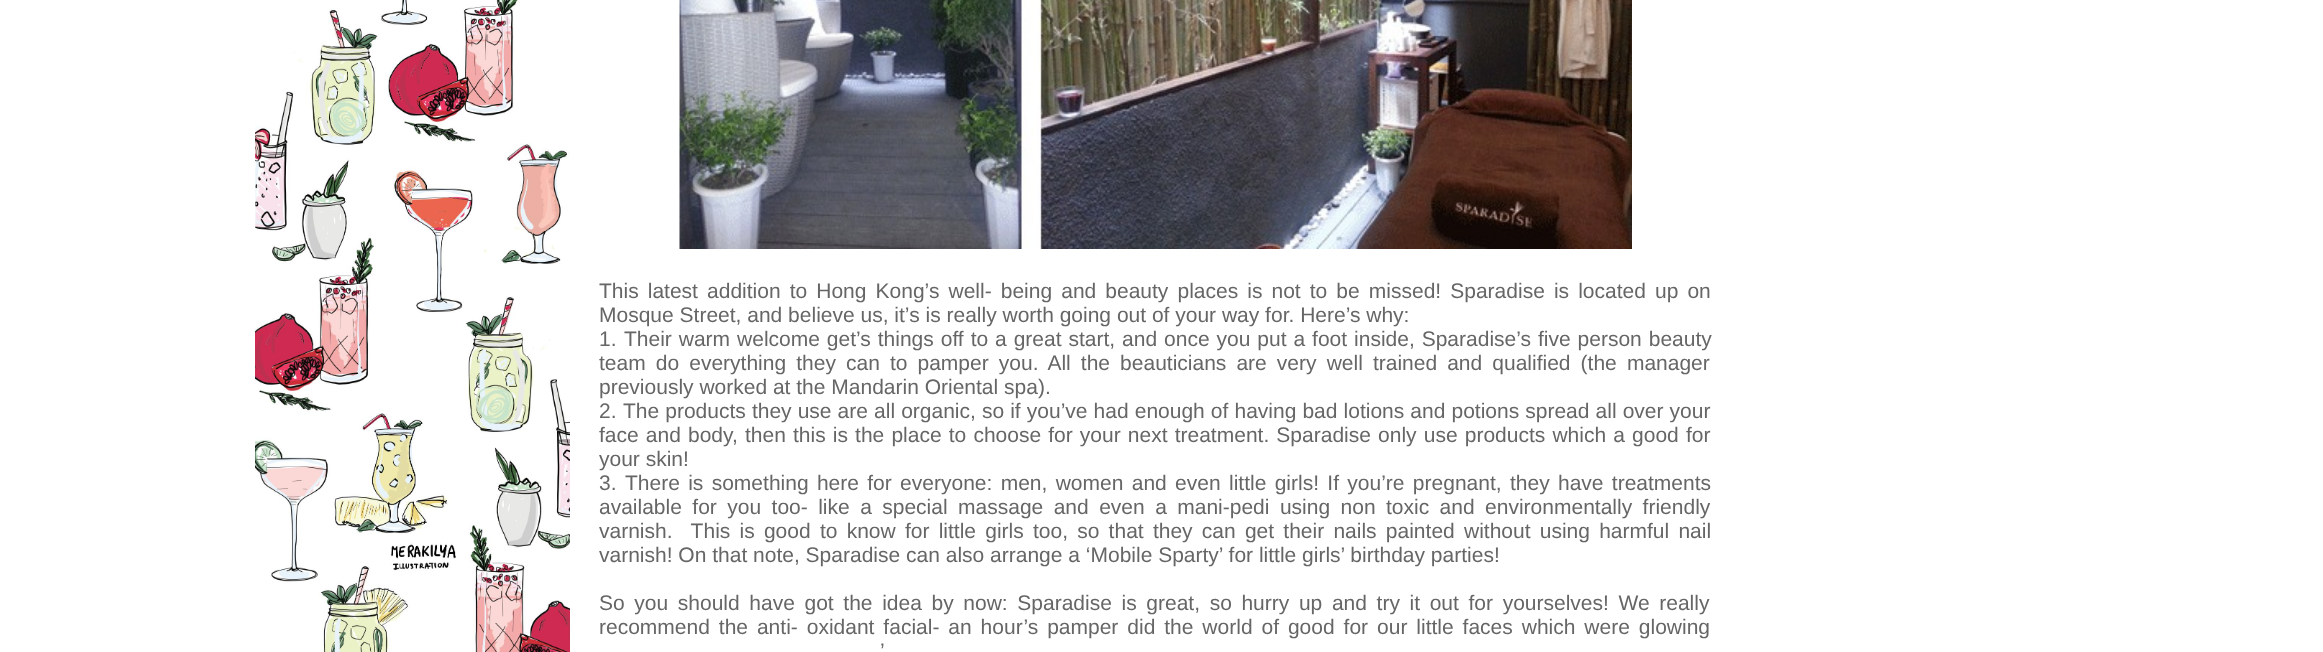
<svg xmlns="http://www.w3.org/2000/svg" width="2323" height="652">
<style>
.a{font:21px Liberation Sans;fill:#666}
</style>
<rect width="100%" height="100%" fill="#fff"/>
<image href="1.png" x="255" y="0" width="315" height="652"/>
<image href="2.png" x="679" y="0" width="953" height="249"/>
<text class="a" x="599" y="298" word-spacing="3.25">This latest addition to Hong Kong’s well- being and beauty places is not to be missed! Sparadise is located up on</text>
<text class="a" x="599" y="322">Mosque Street, and believe us, it’s is really worth going out of your way for. Here’s why:</text>
<text class="a" x="599" y="346">1.</text>
<text class="a" x="624" y="346" word-spacing="1.1">Their warm welcome get’s things off to a great start, and once you put a foot inside, Sparadise’s five person beauty</text>
<text class="a" x="599" y="370" word-spacing="4.25">team do everything they can to pamper you. All the beauticians are very well trained and qualified (the manager</text>
<text class="a" x="599" y="394">previously worked at the Mandarin Oriental spa).</text>
<text class="a" x="599" y="418">2.</text>
<text class="a" x="623" y="418" word-spacing="0.25">The products they use are all organic, so if you’ve had enough of having bad lotions and potions spread all over your</text>
<text class="a" x="599" y="442" word-spacing="1.3">face and body, then this is the place to choose for your next treatment. Sparadise only use products which a good for</text>
<text class="a" x="599" y="466">your skin!</text>
<text class="a" x="599" y="490">3.</text>
<text class="a" x="625" y="490" word-spacing="2.5">There is something here for everyone: men, women and even little girls! If you’re pregnant, they have treatments</text>
<text class="a" x="599" y="514" word-spacing="4.6">available for you too- like a special massage and even a mani-pedi using non toxic and environmentally friendly</text>
<text class="a" xml:space="preserve" x="599" y="538" word-spacing="3.4">varnish.  This is good to know for little girls too, so that they can get their nails painted without using harmful nail</text>
<text class="a" x="599" y="562">varnish! On that note, Sparadise can also arrange a ‘Mobile Sparty’ for little girls’ birthday parties!</text>
<text class="a" x="599" y="610" word-spacing="3.8">So you should have got the idea by now: Sparadise is great, so hurry up and try it out for yourselves! We really</text>
<text class="a" x="599" y="634" word-spacing="3.1">recommend the anti- oxidant facial- an hour’s pamper did the world of good for our little faces which were glowing</text>
<text class="a" x="880" y="658">’</text>
</svg>
